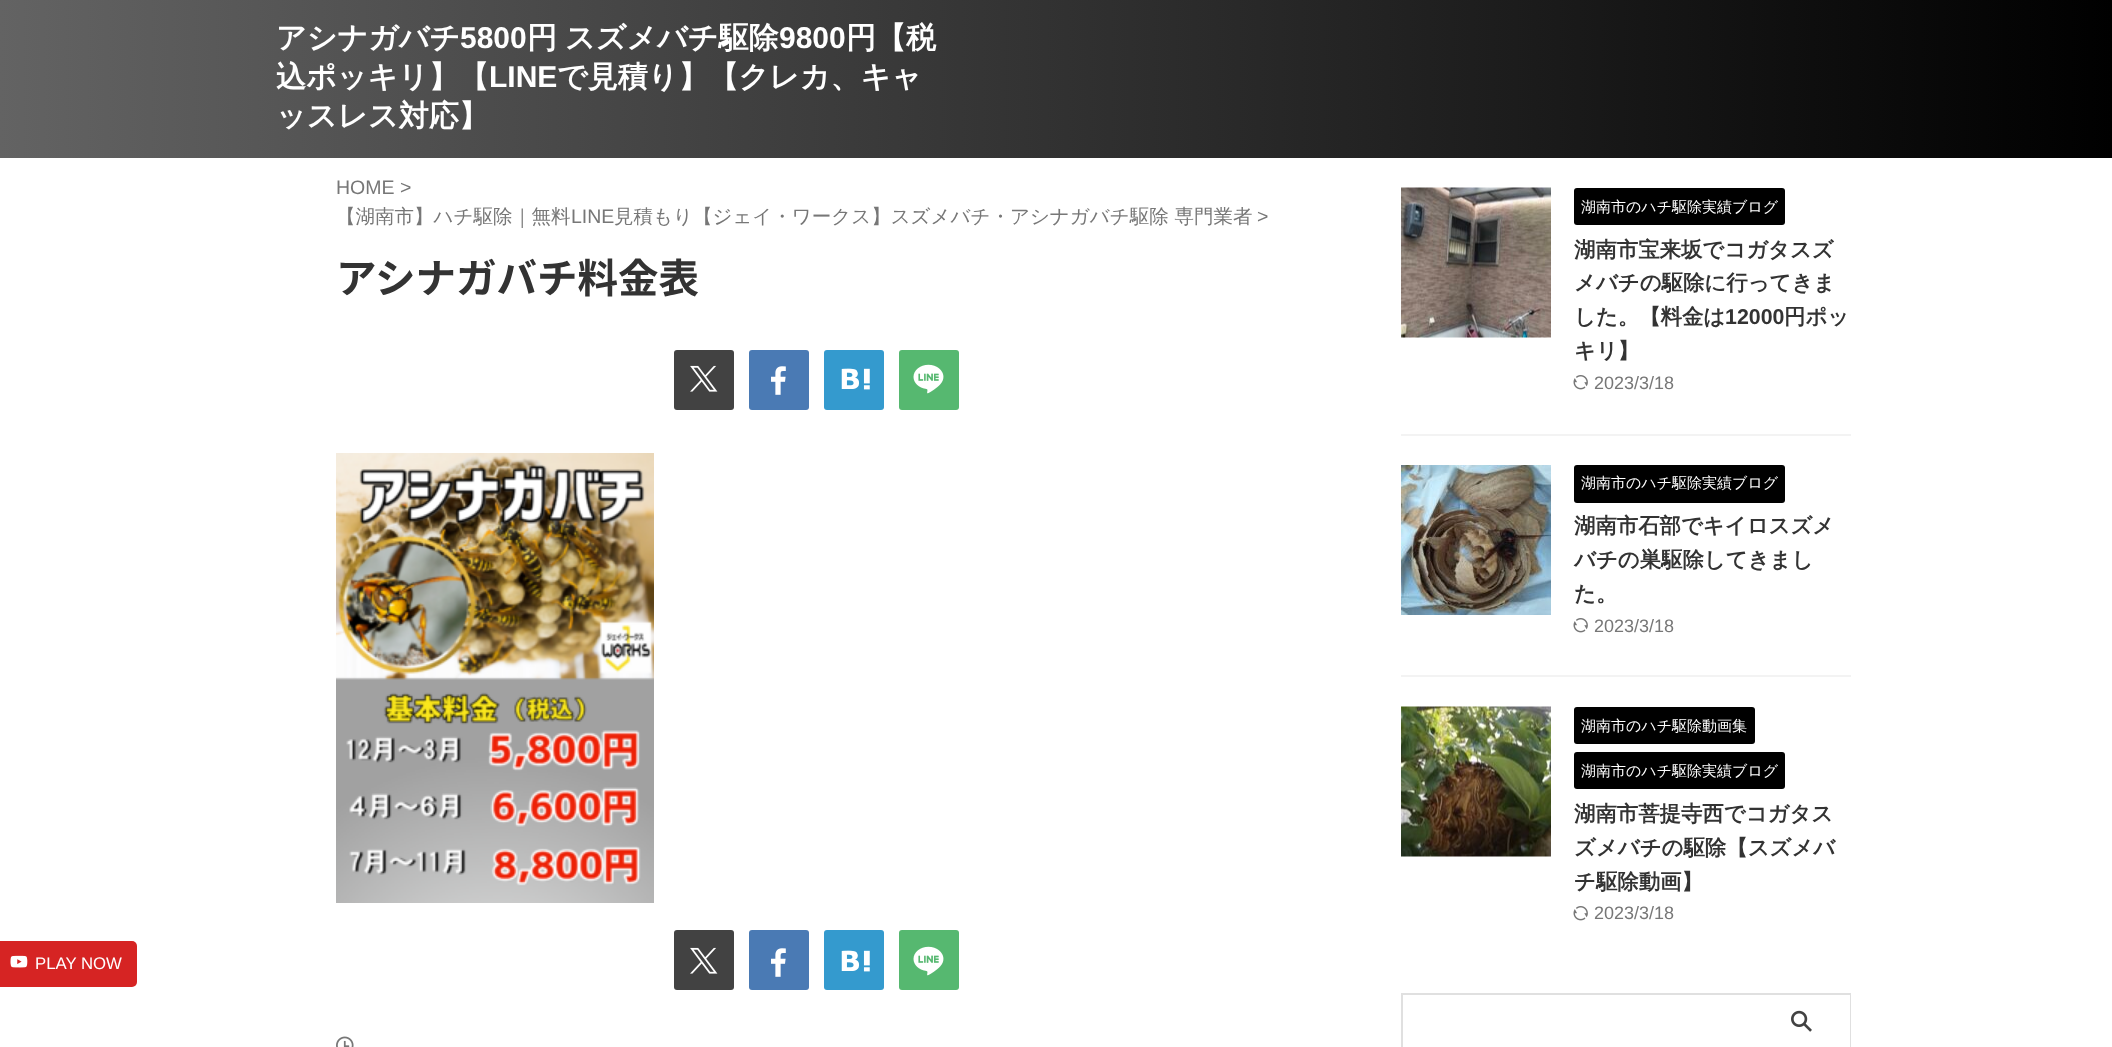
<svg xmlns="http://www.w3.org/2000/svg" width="2112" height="1047">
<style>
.a{font:bold 30px WenQuanYi Zen Hei;fill:#fff}
.b{font:bold 30px Liberation Sans;fill:#fff}
.c{font:19.5px Liberation Sans;fill:#777}
.d{font:500 19.5px WenQuanYi Zen Hei;fill:#777}
.e{font:bold 40.5px Noto Sans JP;fill:#333}
.f{font:500 15px WenQuanYi Zen Hei;fill:#fff}
.g{font:bold 21.4px WenQuanYi Zen Hei;fill:#333}
.h{font:bold 21.4px Liberation Sans;fill:#333}
.i{font:18px Liberation Sans;fill:#777}
.j{font:16.75px Liberation Sans;fill:#fff}
</style>
<defs>
<linearGradient id="g1" gradientUnits="userSpaceOnUse" x1="2112" y1="-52" x2="0" y2="-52"><stop offset="0" stop-color="#000"/><stop offset="1" stop-color="#636363"/></linearGradient>
</defs>
<rect width="100%" height="100%" fill="#fff"/>
<path fill="url(#g1)" d="M0 0h2112v158H0z"/>
<rect fill="#424242" x="674" y="350" width="60" height="60" rx="3"/>
<image href="1.png" x="690" y="365" width="28" height="27"/>
<rect fill="#4a7ab4" x="749" y="350" width="60" height="60" rx="3"/>
<image href="2.png" x="771" y="366" width="15" height="29"/>
<rect fill="#349ace" x="824" y="350" width="60" height="60" rx="3"/>
<image href="3.png" x="841" y="368" width="29" height="22"/>
<rect fill="#56b870" x="899" y="350" width="60" height="60" rx="3"/>
<image href="4.png" x="913" y="364" width="31" height="30"/>
<image href="5.png" x="336" y="453" width="318" height="450"/>
<rect fill="#424242" x="674" y="930" width="60" height="60" rx="3"/>
<image href="1.png" x="690" y="947" width="28" height="27"/>
<rect fill="#4a7ab4" x="749" y="930" width="60" height="60" rx="3"/>
<image href="2.png" x="771" y="948" width="15" height="29"/>
<rect fill="#349ace" x="824" y="930" width="60" height="60" rx="3"/>
<image href="3.png" x="841" y="950" width="29" height="22"/>
<rect fill="#56b870" x="899" y="930" width="60" height="60" rx="3"/>
<image href="4.png" x="913" y="946" width="31" height="30"/>
<image href="6.png" x="336" y="1036" width="18" height="11"/>
<path fill="#f3f3f3" d="M1401 434h450v2H1401z"/>
<image href="7.png" x="1401" y="187" width="150" height="151"/>
<rect fill="#000" x="1574" y="188" width="211" height="37" rx="3"/>
<image href="8.png" x="1573" y="375" width="15" height="15"/>
<path fill="#f3f3f3" d="M1401 675h450v2H1401z"/>
<image href="9.png" x="1401" y="465" width="150" height="150"/>
<rect fill="#000" x="1574" y="465" width="211" height="38" rx="3"/>
<image href="8.png" x="1573" y="618" width="15" height="15"/>
<image href="10.png" x="1401" y="706" width="150" height="151"/>
<rect fill="#000" x="1574" y="707" width="181" height="37" rx="3"/>
<rect fill="#000" x="1574" y="752" width="211" height="37" rx="3"/>
<image href="8.png" x="1573" y="906" width="15" height="15"/>
<path fill="none" stroke="#e0e0e0" stroke-width="2" d="M1402 994h448v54H1402z"/>
<path fill="#fff" d="M1849 995h1v52H1849z"/>
<image href="11.png" x="1791" y="1010" width="21" height="22"/>
<rect fill="#d62423" x="-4" y="941" width="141" height="46" rx="5"/>
<image href="12.png" x="10" y="955" width="18" height="13"/>
<text class="a" x="276" y="48">アシナガバチ</text>
<text class="b" x="460" y="48">5800</text>
<text class="a" x="527" y="48" word-spacing="-1">円 スズメバチ駆除</text>
<text class="b" x="779" y="48">9800</text>
<text class="a" x="846" y="48">円【税</text>
<text class="a" x="276" y="87">込ポッキリ】【</text>
<text class="b" x="489" y="87">LINE</text>
<text class="a" x="557" y="87">で見積り】【クレカ、キャ</text>
<text class="a" x="276" y="126">ッスレス対応】</text>
<text class="c" x="336" y="194">HOME &gt;</text>
<text class="d" x="336" y="223">【湖南市】ハチ駆除｜無料</text>
<text class="c" x="571" y="223">LINE</text>
<text class="d" x="614" y="223">見積もり【ジェイ・ワークス】スズメバチ・アシナガバチ駆除 専門業者</text>
<text class="c" x="1257" y="223">&gt;</text>
<text class="e" x="336" y="293">アシナガバチ料金表</text>
<text class="f" x="1581" y="212">湖南市のハチ駆除実績ブログ</text>
<text class="g" x="1574" y="257">湖南市宝来坂でコガタスズ</text>
<text class="g" x="1574" y="290">メバチの駆除に行ってきま</text>
<text class="g" x="1574" y="324">した。【料金は</text>
<text class="h" x="1725" y="324">12000</text>
<text class="g" x="1784" y="324">円ポッ</text>
<text class="g" x="1574" y="358">キリ】</text>
<text class="i" x="1594" y="389">2023/3/18</text>
<text class="f" x="1581" y="488">湖南市のハチ駆除実績ブログ</text>
<text class="g" x="1574" y="533">湖南市石部でキイロスズメ</text>
<text class="g" x="1574" y="567">バチの巣駆除してきまし</text>
<text class="g" x="1574" y="601">た。</text>
<text class="i" x="1594" y="632">2023/3/18</text>
<text class="f" x="1581" y="731">湖南市のハチ駆除動画集</text>
<text class="f" x="1581" y="776">湖南市のハチ駆除実績ブログ</text>
<text class="g" x="1574" y="821">湖南市菩提寺西でコガタス</text>
<text class="g" x="1574" y="855">ズメバチの駆除【スズメバ</text>
<text class="g" x="1574" y="889">チ駆除動画】</text>
<text class="i" x="1594" y="919">2023/3/18</text>
<text class="j" x="35" y="969">PLAY NOW</text>
</svg>
